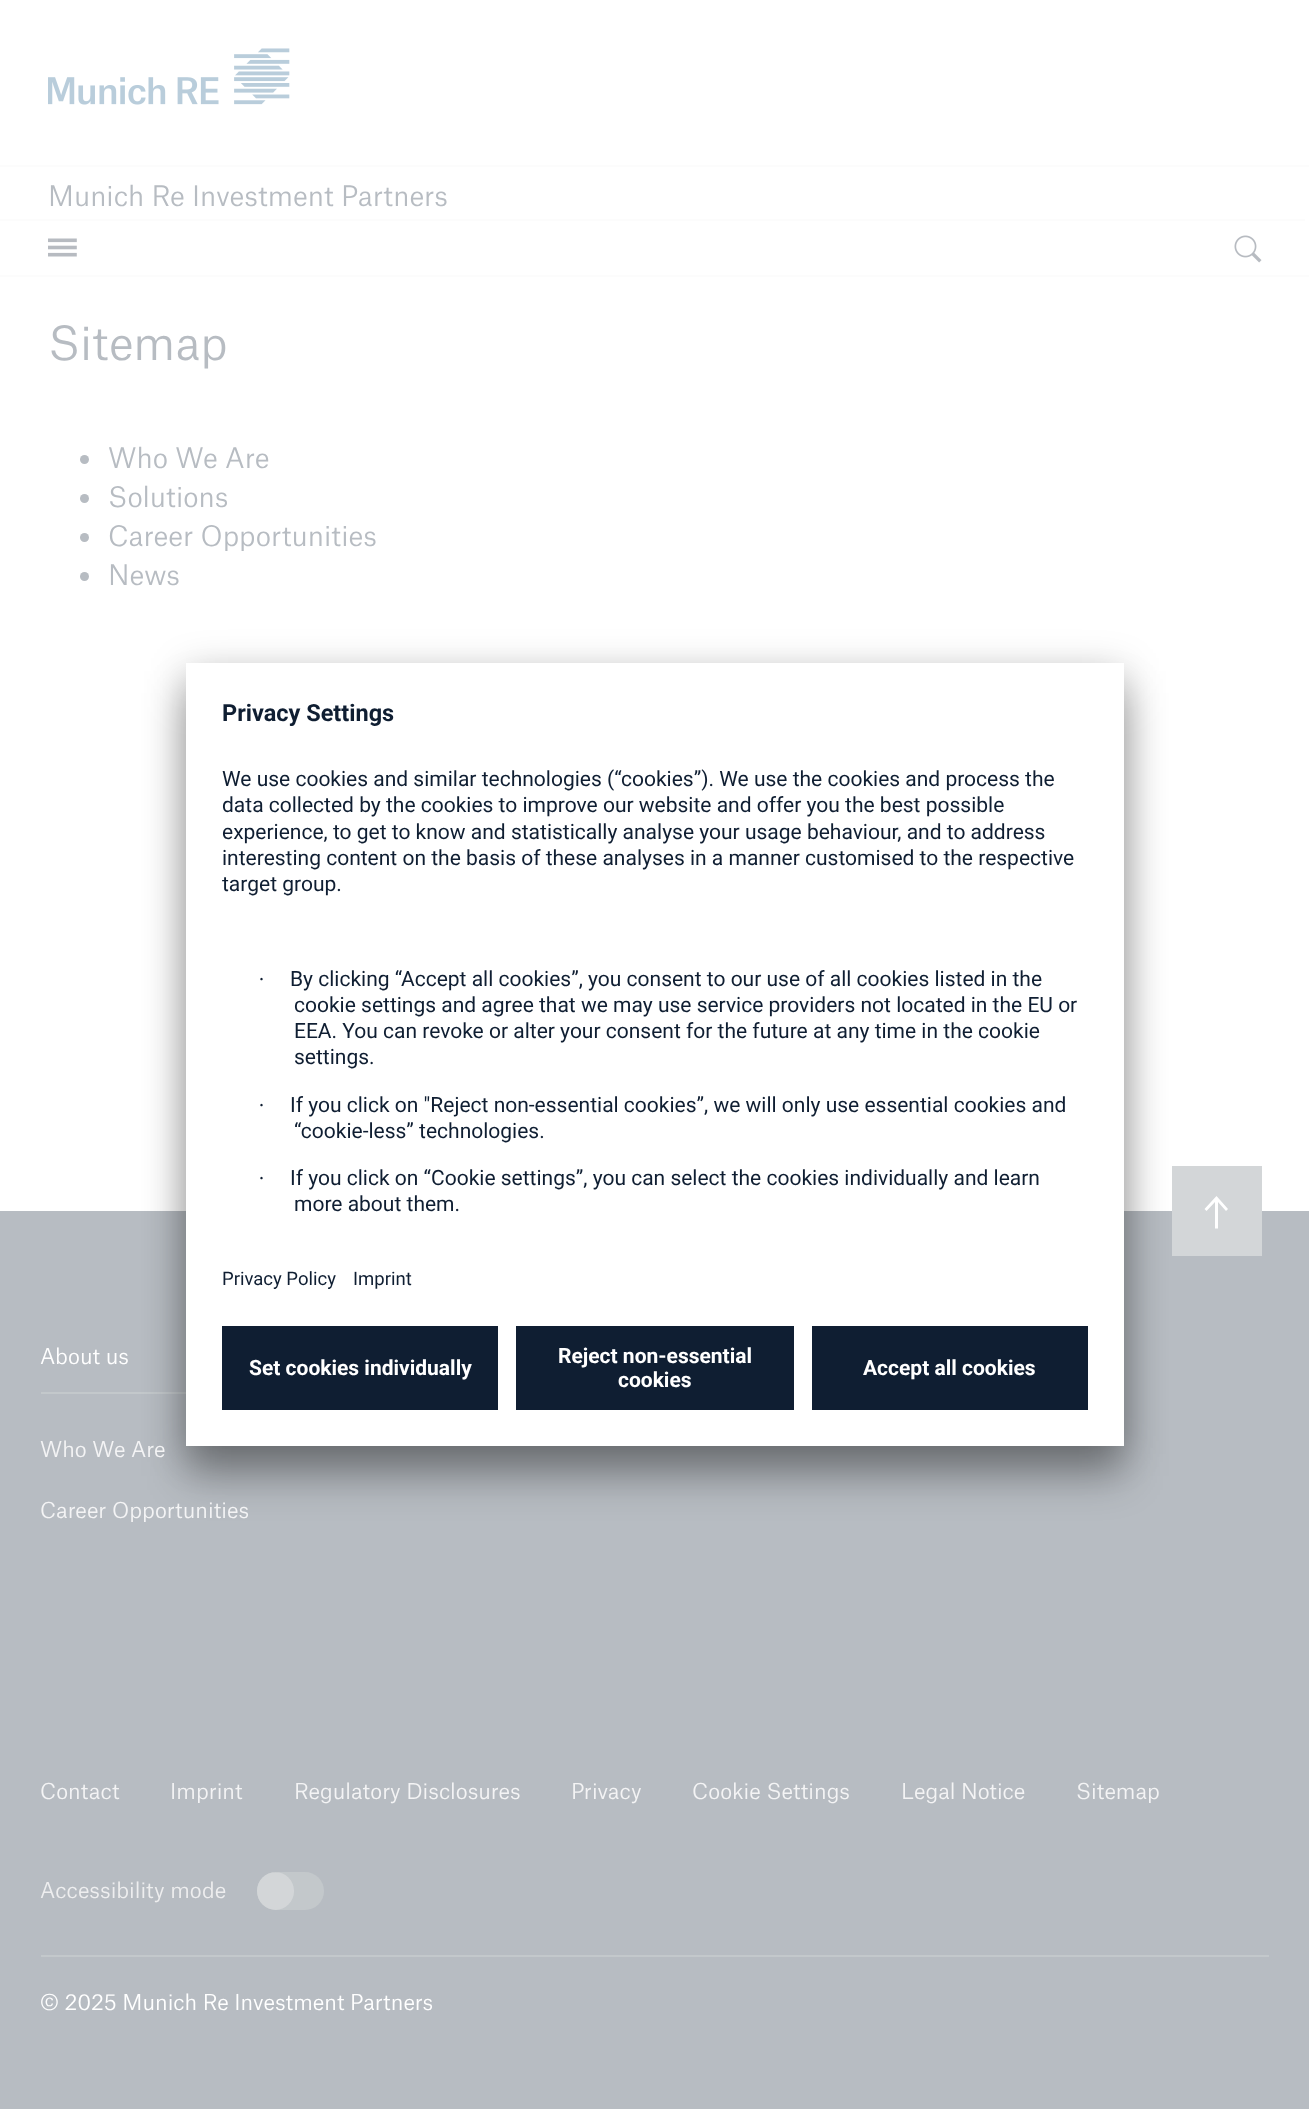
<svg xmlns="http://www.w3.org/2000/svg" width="1309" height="2109">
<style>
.a{font:27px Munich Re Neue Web;fill:#b7bcc2}
.b{font:45px Munich Re Neue Web;fill:#b7bcc2}
.c{font:21px Munich Re Neue Web;fill:#fff}
.d{font:21px Munich Re Neue Web;fill:#f4f4f5}
.e{font:21px Munich Re Neue Web;fill:#eeeeef}
.f{font:bold 23.5px Roboto;fill:#0f1e32}
.g{font:21px Roboto;fill:#0f1e32}
.h{font:21px Liberation Serif;fill:#0f1e32}
.i{font:18.5px Roboto;fill:#0f1e32}
.j{font:bold 21px Roboto;fill:#fff}
</style>
<rect width="100%" height="100%" fill="#fff"/>
<image href="1.png" x="48" y="48" width="242" height="57"/>
<path fill="#fcfcfc" d="M0 165h1309v2H0z"/>
<path fill="#fcfcfc" d="M0 219h1305v2H0z"/>
<image href="2.png" x="48" y="238" width="29" height="19"/>
<image href="3.png" x="1234" y="235" width="28" height="28"/>
<path fill="#fcfcfc" d="M0 275h1309v2H0z"/>
<circle fill="#b7bcc2" cx="84.5" cy="459.5" r="4.5"/>
<circle fill="#b7bcc2" cx="84.5" cy="498.5" r="4.5"/>
<circle fill="#b7bcc2" cx="84.5" cy="537.5" r="4.5"/>
<circle fill="#b7bcc2" cx="84.5" cy="576.5" r="4.5"/>
<path fill="#b7bcc2" d="M0 1211h1309v898H0z"/>
<path fill="#d3d6d8" d="M1172 1166h90v90H1172z"/>
<path fill="#fff" d="M1218 1228.5v-26.5l8 9l2-2l-11.5-13l-12 13l2 2l8.5-9v26.5z"/>
<path fill="#c3c8cb" d="M41 1392h145v2H41z"/>
<rect fill="#c3c8cb" x="257" y="1872" width="67" height="38" rx="19"/>
<path fill="#d3d6d8" d="M276 1872h-.5c10 0 18.5 8.5 18.5 18.5v1c0 10-8.5 18.5-18.5 18.5h.5c-10.5 0-19-8.5-19-19c0-10.5 8.5-19 19-19z"/>
<path fill="#c3c8cb" d="M41 1955h1228v2H41z"/>
<path fill="#0000004d" filter="blur(21px)" d="M186 693h938v783H186z"/>
<path fill="#00000038" filter="blur(19.5px)" d="M186 671h938v783H186z"/>
<path fill="#fff" d="M186 663h938v783H186z"/>
<path fill="#0f1e32" d="M222 1326h276v84H222z"/>
<path fill="#0f1e32" d="M516 1326h278v84H516z"/>
<path fill="#0f1e32" d="M812 1326h276v84H812z"/>
<text class="a" x="48" y="206">Munich Re Investment Partners</text>
<text class="b" x="48" y="360">Sitemap</text>
<text class="a" x="108" y="468">Who We Are</text>
<text class="a" x="108" y="507">Solutions</text>
<text class="a" x="108" y="546">Career Opportunities</text>
<text class="a" x="108" y="585">News</text>
<text class="c" x="40" y="1364">About us</text>
<text class="d" x="40" y="1457">Who We Are</text>
<text class="d" x="40" y="1518">Career Opportunities</text>
<text class="d" x="40" y="1799">Contact</text>
<text class="d" x="170" y="1799">Imprint</text>
<text class="d" x="294" y="1799">Regulatory Disclosures</text>
<text class="d" x="571" y="1799">Privacy</text>
<text class="d" x="692" y="1799">Cookie Settings</text>
<text class="d" x="901" y="1799">Legal Notice</text>
<text class="d" x="1076" y="1799">Sitemap</text>
<text class="e" x="40" y="1898">Accessibility mode</text>
<text class="c" x="40" y="2010">© 2025 Munich Re Investment Partners</text>
<text class="f" x="222" y="721">Privacy Settings</text>
<text class="g" x="222" y="786">We use cookies and similar technologies (“cookies”). We use the cookies and process the</text>
<text class="g" x="222" y="812">data collected by the cookies to improve our website and offer you the best possible</text>
<text class="g" x="222" y="839">experience, to get to know and statistically analyse your usage behaviour, and to address</text>
<text class="g" x="222" y="865">interesting content on the basis of these analyses in a manner customised to the respective</text>
<text class="g" x="222" y="891">target group.</text>
<text class="h" x="258" y="986">·</text>
<text class="g" x="290" y="986">By clicking “Accept all cookies”, you consent to our use of all cookies listed in the</text>
<text class="g" x="294" y="1012">cookie settings and agree that we may use service providers not located in the EU or</text>
<text class="g" x="294" y="1038">EEA. You can revoke or alter your consent for the future at any time in the cookie</text>
<text class="g" x="294" y="1064">settings.</text>
<text class="h" x="258" y="1112">·</text>
<text class="g" x="290" y="1112">If you click on "Reject non-essential cookies”, we will only use essential cookies and</text>
<text class="g" x="294" y="1138">“cookie-less” technologies.</text>
<text class="h" x="258" y="1185">·</text>
<text class="g" x="290" y="1185">If you click on “Cookie settings”, you can select the cookies individually and learn</text>
<text class="g" x="294" y="1211">more about them.</text>
<text class="i" x="222" y="1285">Privacy Policy</text>
<text class="i" x="353" y="1285">Imprint</text>
<text class="j" x="249" y="1375">Set cookies individually</text>
<text class="j" x="558" y="1363">Reject non-essential</text>
<text class="j" x="618" y="1387">cookies</text>
<text class="j" x="863" y="1375">Accept all cookies</text>
</svg>
